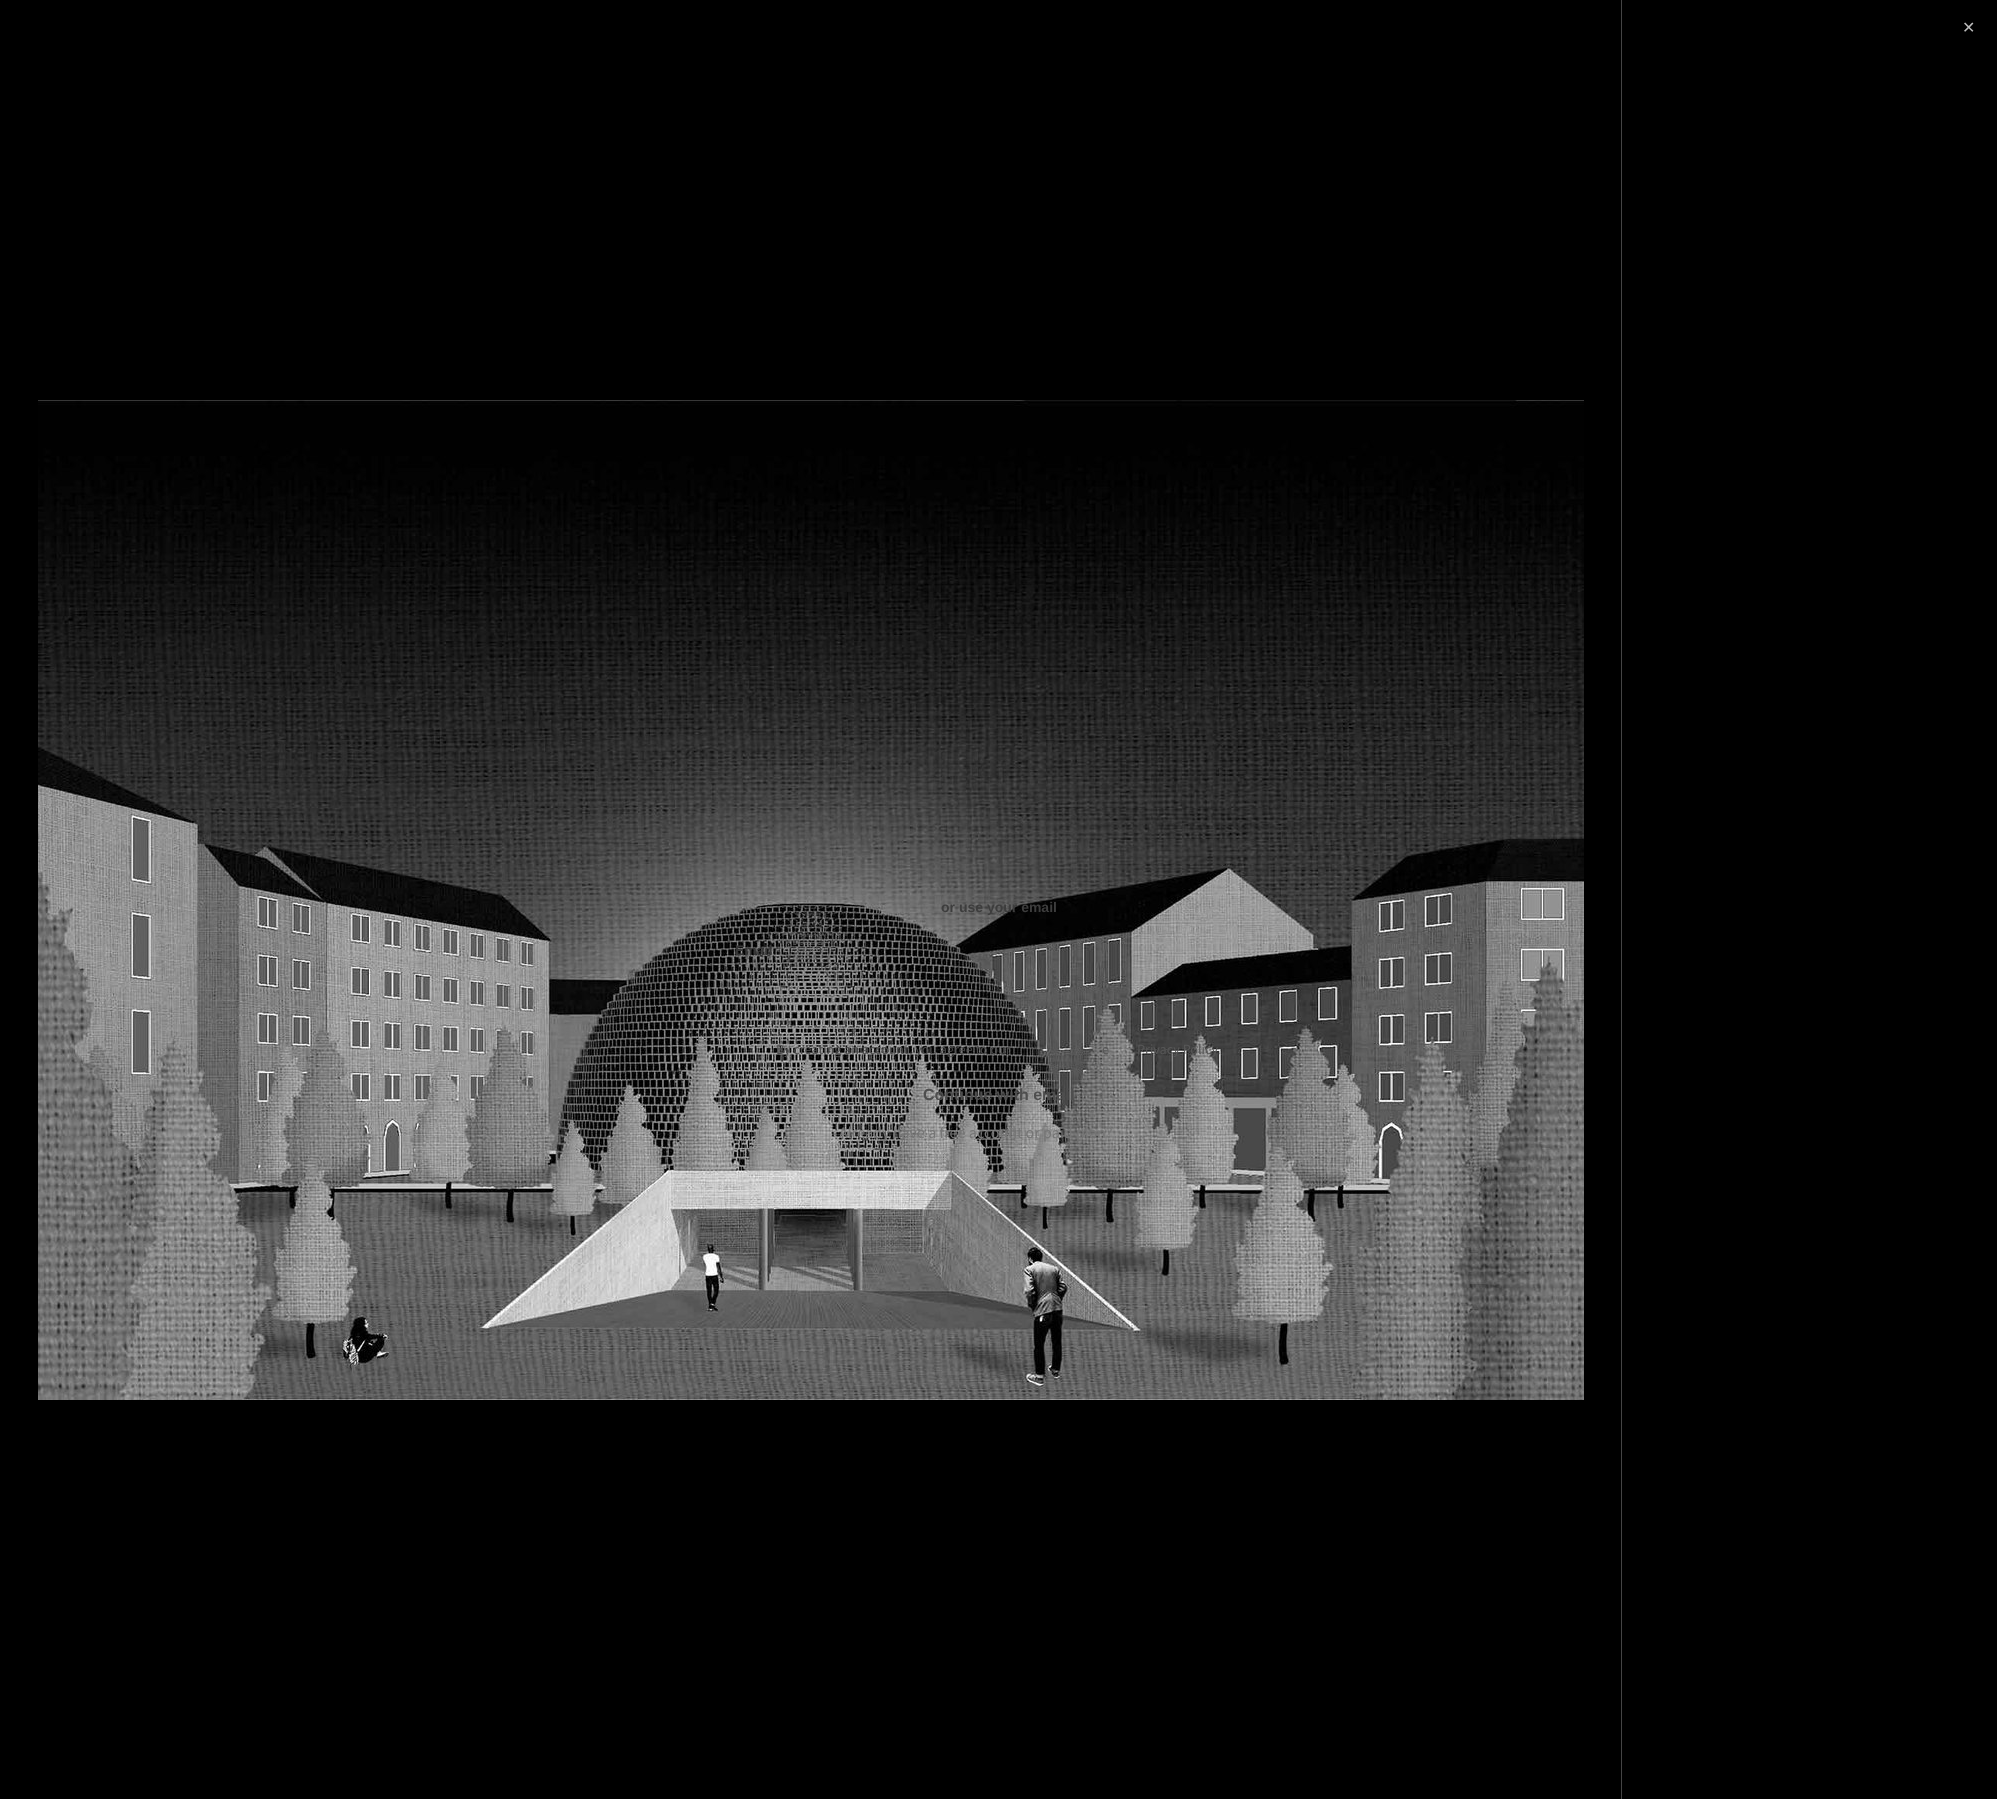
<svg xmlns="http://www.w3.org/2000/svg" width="1997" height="1799">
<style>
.a{font:16px DejaVu Sans;fill:#bbb}
.b{font:bold 14px Liberation Sans;fill:#3d3d3d}
.c{font:bold 14px Liberation Sans;fill:#373737}
.d{font:14px Source Sans Pro;fill:#4e4e4e}
.e{font:14px Source Sans Pro;fill:#575757}
.f{font:14px Source Sans Pro;fill:#959595}
.g{font:bold 16px Liberation Sans;fill:#4e4e4e}
.h{font:16px Source Sans Pro;fill:#757575}
</style>
<rect width="100%" height="100%" fill="#000"/>
<path fill="#444" d="M1621 0h1v1799H1621z"/>
<image href="1.png" x="38" y="400" width="1546" height="1000"/>
<text class="a" x="1962" y="33">✕</text>
<text class="b" x="941" y="912">or use your email</text>
<text class="c" x="735" y="955">Email</text>
<text class="d" x="776" y="1054">By creating an account, you agree to our</text>
<text class="e" x="1102" y="1054">e</text>
<text class="e" x="1137" y="1054">Privacy Policy</text>
<text class="f" x="1218" y="1054">.</text>
<text class="g" x="923" y="1100">Continue with email</text>
<text class="h" x="839" y="1138">Already have a free account or paid plan?</text>
</svg>
